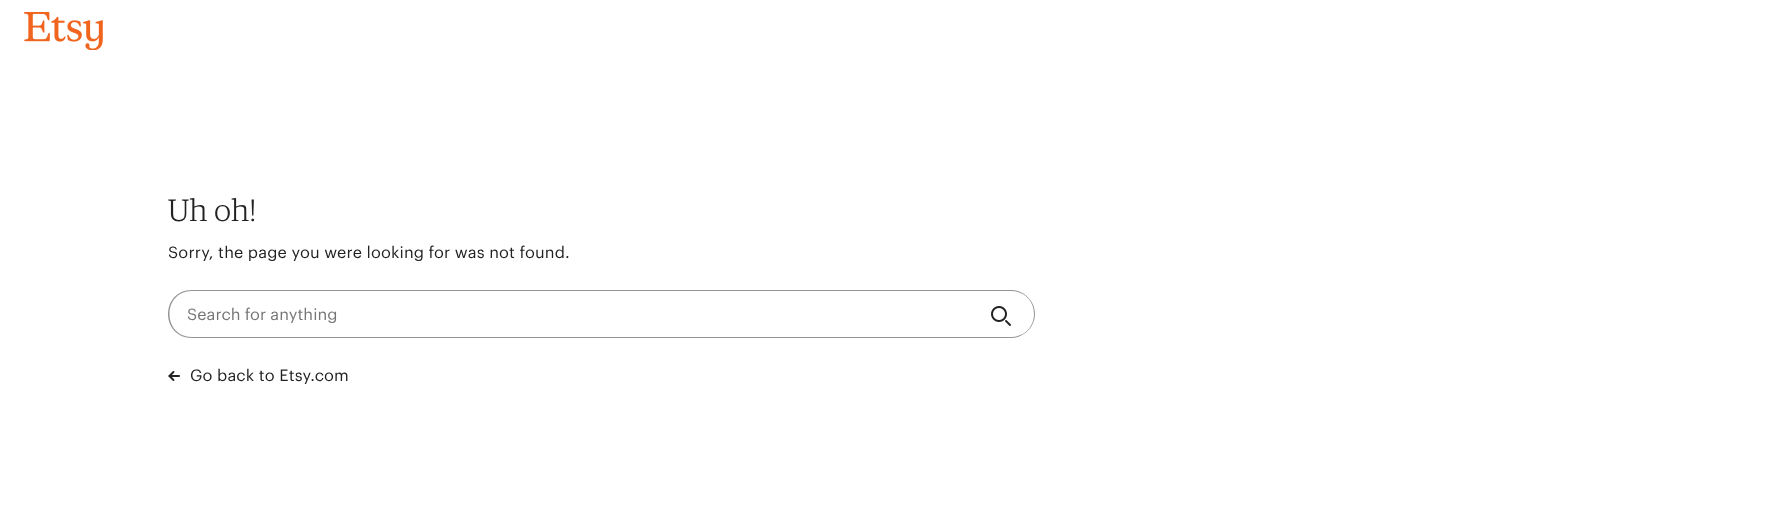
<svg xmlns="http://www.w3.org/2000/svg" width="1782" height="518">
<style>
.a{font:300 31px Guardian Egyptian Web;letter-spacing:0.5px;fill:#222}
.b{font:16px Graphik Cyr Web;letter-spacing:0.15px;fill:#222}
.c{font:16px Graphik Cyr Web;fill:#757575}
</style>
<rect width="100%" height="100%" fill="#fff"/>
<image href="1.png" x="24" y="12" width="79" height="38"/>
<path fill="#949494" fill-rule="evenodd" d="M192 290h782v48h-782c-32 0-32-48 0-48zm0 1h782v46h-782c-30 0-30-46 0-46z"/>
<path fill="#949494" fill-rule="evenodd" d="M974 290h37c13 0 24 11 24 24c0 13-11 24-24 24h-37zm0 1h37c13 0 23 10 23 23c0 13-10 23-23 23h-37z"/>
<image href="2.png" x="991" y="306" width="20" height="20"/>
<image href="3.png" x="168" y="371" width="12" height="10"/>
<text class="a" x="168" y="221">Uh oh!</text>
<text class="b" x="168" y="258">Sorry, the page you were looking for was not found.</text>
<text class="c" x="187" y="320">Search for anything</text>
<text class="b" x="190" y="381">Go back to Etsy.com</text>
</svg>
